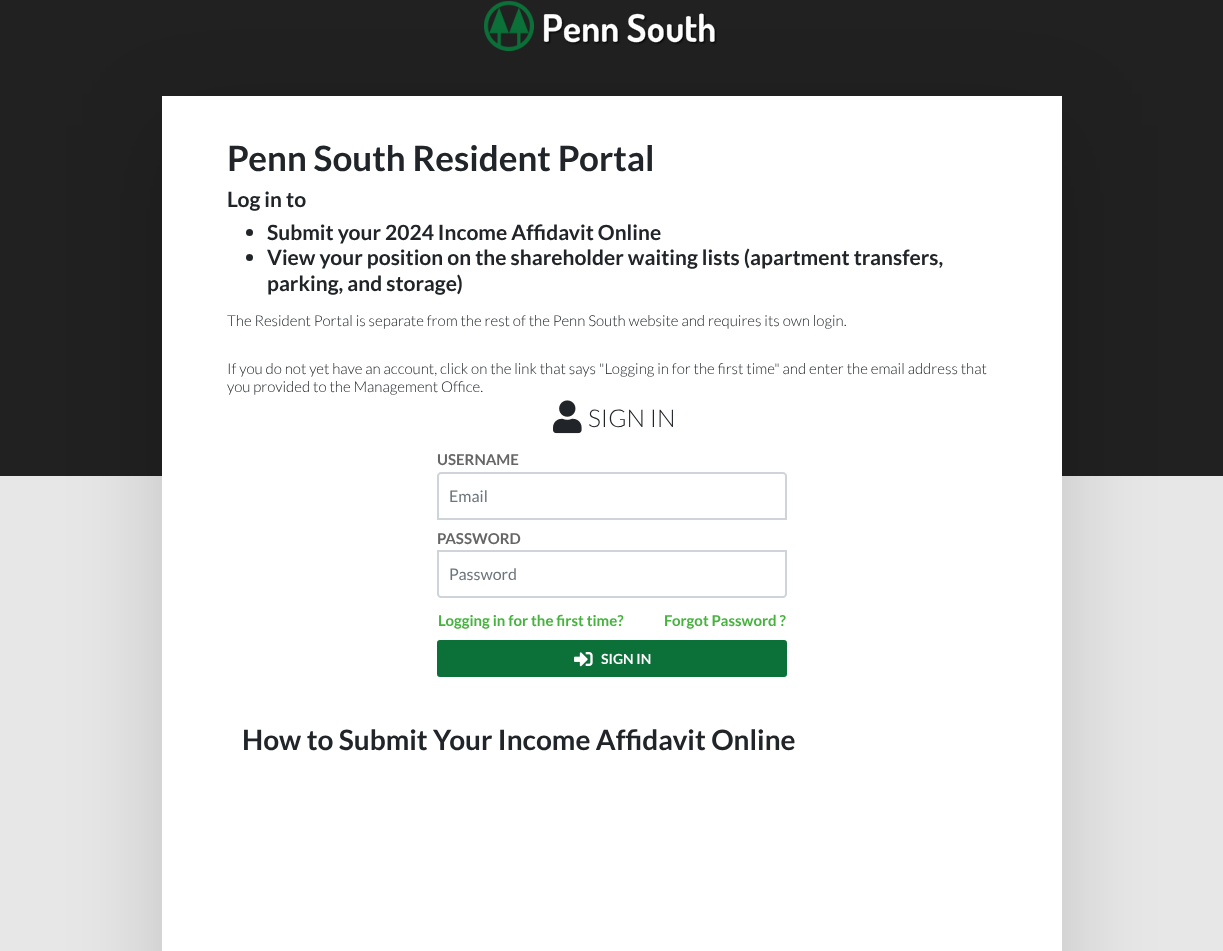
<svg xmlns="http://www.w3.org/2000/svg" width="1223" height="951">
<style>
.a{font:bold 35px Lato;fill:#212529}
.b{font:bold 21px Lato;fill:#212529}
.c{font:300 15px Lato;fill:#212529}
.d{font:300 24.5px Lato;fill:#212529}
.e{font:bold 15px Lato;fill:#666}
.f{font:16px Lato;fill:#6c757d}
.g{font:bold 15px Lato;fill:#45b33d}
.h{font:bold 14px Lato;fill:#fff}
.i{font:bold 28px Lato;fill:#212529}
</style>
<rect width="100%" height="100%" fill="#e7e7e7"/>
<path fill="#222121" d="M0 0h1223v476H0z"/>
<image href="1.png" x="484" y="1" width="233" height="50"/>
<path fill="#00000029" filter="blur(47.5px)" d="M162 125h900v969H162z"/>
<path fill="#fff" d="M162 96h900v855H162z"/>
<circle fill="#212529" cx="249.5" cy="232.5" r="3.5"/>
<circle fill="#212529" cx="249.5" cy="257.5" r="3.5"/>
<image href="2.png" x="553" y="400" width="29" height="34"/>
<path fill="none" stroke="#ced4da" stroke-width="2" d="M441 473h342c1.5 0 3 1.5 3 3v43h-348v-43c0-1.5 1.5-3 3-3z"/>
<path fill="none" stroke="#ced4da" stroke-width="2" d="M438 551h348v43c0 1.5-1.5 3-3 3h-342c-1.5 0-3-1.5-3-3z"/>
<rect fill="#0c7039" stroke="#0c7039" stroke-width="2" x="438" y="641" width="348" height="35" rx="2"/>
<image href="3.png" x="574" y="652" width="19" height="15"/>
<text class="a" x="227" y="171">Penn South Resident Portal</text>
<text class="b" x="227" y="207">Log in to</text>
<text class="b" x="267" y="240">Submit your 2024 Income Affidavit Online</text>
<text class="b" x="267" y="265">View your position on the shareholder waiting lists (apartment transfers,</text>
<text class="b" x="267" y="291">parking, and storage)</text>
<text class="c" x="227" y="326">The Resident Portal is separate from the rest of the Penn South website and requires its own login.</text>
<text class="c" x="227" y="374">If you do not yet have an account, click on the link that says "Logging in for the first time" and enter the email address that</text>
<text class="c" x="227" y="392">you provided to the Management Office.</text>
<text class="d" x="588" y="427">SIGN IN</text>
<text class="e" x="437" y="465">USERNAME</text>
<text class="f" x="449" y="502">Email</text>
<text class="e" x="437" y="544">PASSWORD</text>
<text class="f" x="449" y="580">Password</text>
<text class="g" x="438" y="626">Logging in for the first time?</text>
<text class="g" x="664" y="626">Forgot Password ?</text>
<text class="h" x="601" y="664">SIGN IN</text>
<text class="i" x="242" y="750">How to Submit Your Income Affidavit Online</text>
</svg>
